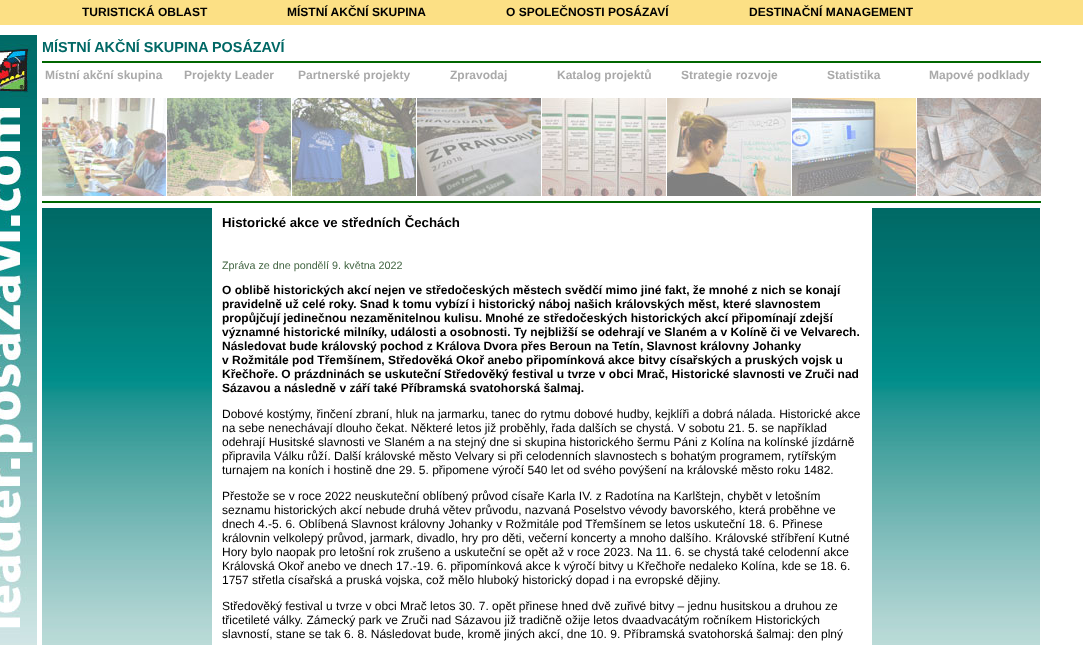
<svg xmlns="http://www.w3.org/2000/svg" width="1083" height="645">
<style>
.a{font:bold 12px Liberation Sans;fill:#000}
.b{font:bold 14.4px Liberation Sans;fill:#006865}
.c{font:bold 12px Liberation Sans;fill:#aaa}
.d{font:bold 13.25px Liberation Sans;fill:#000}
.e{font:10.75px Liberation Sans;fill:#464}
.f{font:12px Liberation Sans;fill:#000}
</style>
<rect width="100%" height="100%" fill="#fff"/>
<path fill="#fce085" d="M0 0h1083v25H0z"/>
<image href="1.png" x="0" y="35" width="37" height="610"/>
<path fill="#060" d="M42 61h999v2H42z"/>
<path fill="#060" d="M42 201h999v2H42z"/>
<image href="2.png" x="42" y="98" width="124" height="98"/>
<image href="3.png" x="167" y="98" width="124" height="98"/>
<image href="4.png" x="292" y="98" width="124" height="98"/>
<image href="5.png" x="417" y="98" width="124" height="98"/>
<image href="6.png" x="542" y="98" width="124" height="98"/>
<image href="7.png" x="667" y="98" width="124" height="98"/>
<image href="8.png" x="792" y="98" width="124" height="98"/>
<image href="9.png" x="917" y="98" width="124" height="98"/>
<image href="10.png" x="42" y="208" width="170" height="437"/>
<image href="11.png" x="872" y="208" width="168" height="437"/>
<text class="a" x="82" y="16">TURISTICKÁ OBLAST</text>
<text class="a" x="287" y="16">MÍSTNÍ AKČNÍ SKUPINA</text>
<text class="a" x="506" y="16">O SPOLEČNOSTI POSÁZAVÍ</text>
<text class="a" x="749" y="16">DESTINAČNÍ MANAGEMENT</text>
<text class="b" x="42" y="52">MÍSTNÍ AKČNÍ SKUPINA POSÁZAVÍ</text>
<text class="c" x="45" y="79">Místní akční skupina</text>
<text class="c" x="184" y="79">Projekty Leader</text>
<text class="c" x="298" y="79">Partnerské projekty</text>
<text class="c" x="450" y="79">Zpravodaj</text>
<text class="c" x="557" y="79">Katalog projektů</text>
<text class="c" x="681" y="79">Strategie rozvoje</text>
<text class="c" x="827" y="79">Statistika</text>
<text class="c" x="929" y="79">Mapové podklady</text>
<text class="d" x="222" y="227">Historické akce ve středních Čechách</text>
<text class="e" x="222" y="269">Zpráva ze dne pondělí 9. května 2022</text>
<text class="a" x="222" y="294">O oblibě historických akcí nejen ve středočeských městech svědčí mimo jiné fakt, že mnohé z nich se konají</text>
<text class="a" x="222" y="308">pravidelně už celé roky. Snad k tomu vybízí i historický náboj našich královských měst, které slavnostem</text>
<text class="a" x="222" y="322">propůjčují jedinečnou nezaměnitelnou kulisu. Mnohé ze středočeských historických akcí připomínají zdejší</text>
<text class="a" x="222" y="336">významné historické milníky, události a osobnosti. Ty nejbližší se odehrají ve Slaném a v Kolíně či ve Velvarech.</text>
<text class="a" x="222" y="350">Následovat bude královský pochod z Králova Dvora přes Beroun na Tetín, Slavnost královny Johanky</text>
<text class="a" x="222" y="364">v Rožmitále pod Třemšínem, Středověká Okoř anebo připomínková akce bitvy císařských a pruských vojsk u</text>
<text class="a" x="222" y="378">Křečhoře. O prázdninách se uskuteční Středověký festival u tvrze v obci Mrač, Historické slavnosti ve Zruči nad</text>
<text class="a" x="222" y="392">Sázavou a následně v září také Příbramská svatohorská šalmaj.</text>
<text class="f" x="222" y="418">Dobové kostýmy, řinčení zbraní, hluk na jarmarku, tanec do rytmu dobové hudby, kejklíři a dobrá nálada. Historické akce</text>
<text class="f" x="222" y="432">na sebe nenechávají dlouho čekat. Některé letos již proběhly, řada dalších se chystá. V sobotu 21. 5. se například</text>
<text class="f" x="222" y="446">odehrají Husitské slavnosti ve Slaném a na stejný dne si skupina historického šermu Páni z Kolína na kolínské jízdárně</text>
<text class="f" x="222" y="460">připravila Válku růží. Další královské město Velvary si při celodenních slavnostech s bohatým programem, rytířským</text>
<text class="f" x="222" y="474">turnajem na koních i hostině dne 29. 5. připomene výročí 540 let od svého povýšení na královské město roku 1482.</text>
<text class="f" x="222" y="500">Přestože se v roce 2022 neuskuteční oblíbený průvod císaře Karla IV. z Radotína na Karlštejn, chybět v letošním</text>
<text class="f" x="222" y="514">seznamu historických akcí nebude druhá větev průvodu, nazvaná Poselstvo vévody bavorského, která proběhne ve</text>
<text class="f" x="222" y="528">dnech 4.-5. 6. Oblíbená Slavnost královny Johanky v Rožmitále pod Třemšínem se letos uskuteční 18. 6. Přinese</text>
<text class="f" x="222" y="542">královnin velkolepý průvod, jarmark, divadlo, hry pro děti, večerní koncerty a mnoho dalšího. Královské stříbření Kutné</text>
<text class="f" x="222" y="556">Hory bylo naopak pro letošní rok zrušeno a uskuteční se opět až v roce 2023. Na 11. 6. se chystá také celodenní akce</text>
<text class="f" x="222" y="570">Královská Okoř anebo ve dnech 17.-19. 6. připomínková akce k výročí bitvy u Křečhoře nedaleko Kolína, kde se 18. 6.</text>
<text class="f" x="222" y="584">1757 střetla císařská a pruská vojska, což mělo hluboký historický dopad i na evropské dějiny.</text>
<text class="f" x="222" y="610">Středověký festival u tvrze v obci Mrač letos 30. 7. opět přinese hned dvě zuřivé bitvy – jednu husitskou a druhou ze</text>
<text class="f" x="222" y="624">třicetileté války. Zámecký park ve Zruči nad Sázavou již tradičně ožije letos dvaadvacátým ročníkem Historických</text>
<text class="f" x="222" y="638">slavností, stane se tak 6. 8. Následovat bude, kromě jiných akcí, dne 10. 9. Příbramská svatohorská šalmaj: den plný</text>
</svg>
